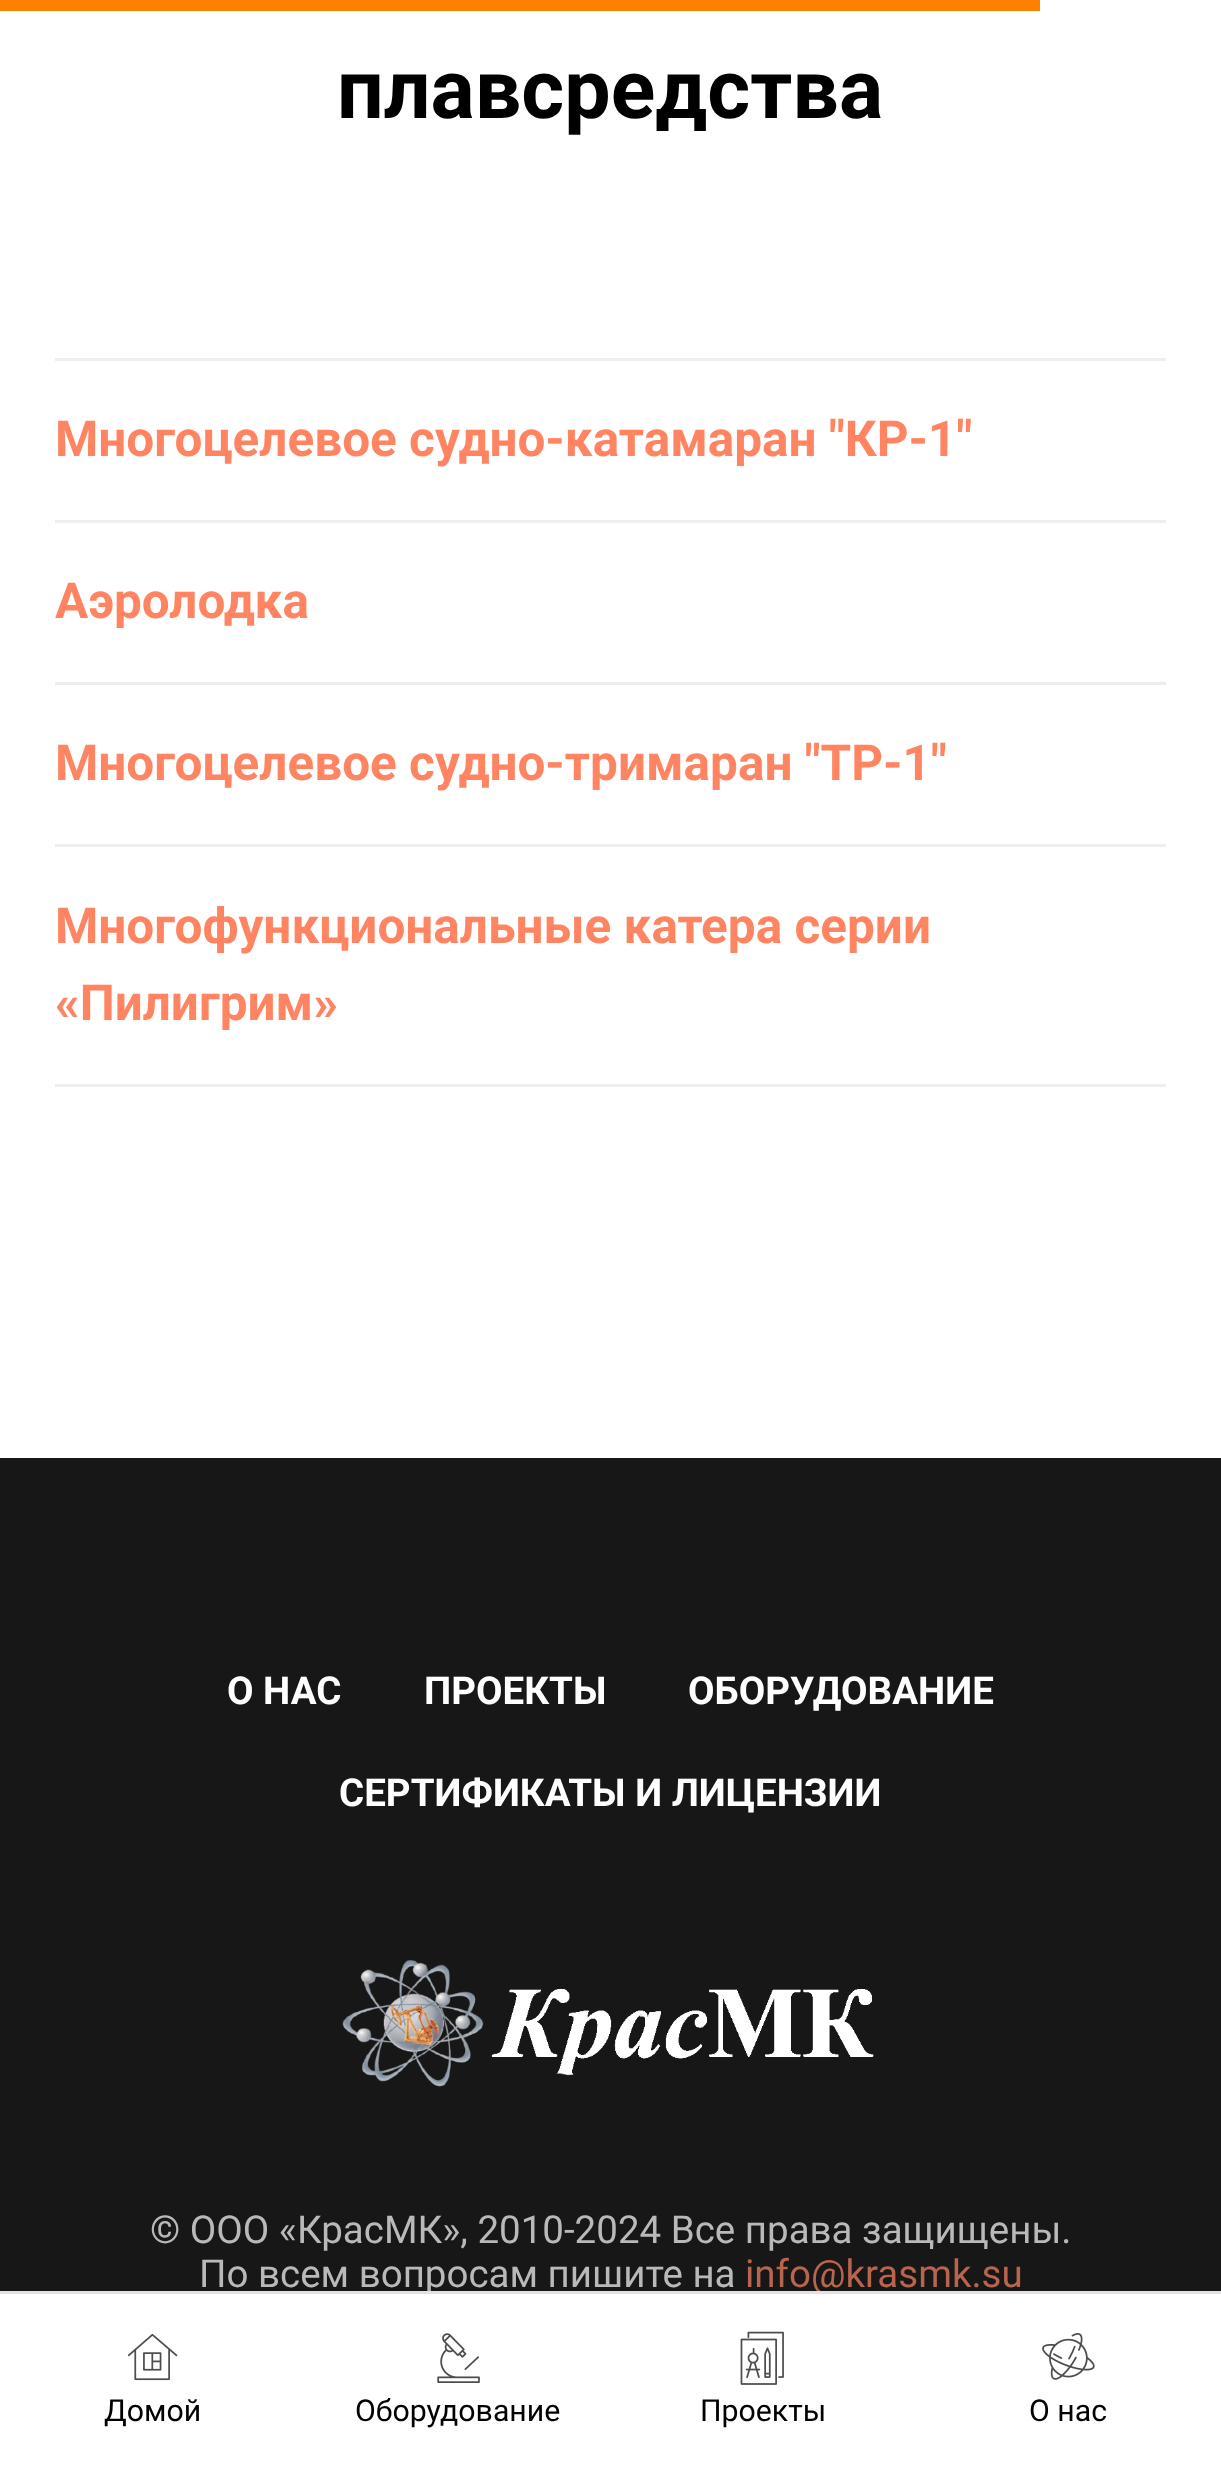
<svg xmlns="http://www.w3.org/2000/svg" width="1221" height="2472">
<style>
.a{font:bold 82.5px Roboto;fill:#000}
.b{font:bold 49.5px Roboto;fill:#ff8562}
.c{font:bold 38.5px Roboto;fill:#fff}
.d{font:38.5px Roboto;fill:#b9b9b9}
.e{font:38.5px Roboto;fill:#b9644c}
.f{font:30.25px Roboto;fill:#000}
</style>
<rect width="100%" height="100%" fill="#fff"/>
<path fill="#eee" d="M55 358h1111v3H55z"/>
<path fill="#eee" d="M55 520h1111v3H55z"/>
<path fill="#eee" d="M55 682h1111v3H55z"/>
<path fill="#eee" d="M55 844h1111v3H55z"/>
<path fill="#eee" d="M55 1084h1111v3H55z"/>
<path fill="#ff8000" d="M0 0h1040v11H0z"/>
<path fill="#171717" d="M0 1458h1221v833H0z"/>
<image href="1.png" x="342" y="1960" width="532" height="127"/>
<image href="2.png" x="127" y="2333" width="51" height="48"/>
<image href="3.png" x="437" y="2333" width="43" height="50"/>
<image href="4.png" x="740" y="2331" width="44" height="54"/>
<image href="5.png" x="1042" y="2333" width="53" height="47"/>
<text class="a" x="337" y="118">плавсредства</text>
<text class="b" x="55" y="456">Многоцелевое судно-катамаран "КР-1"</text>
<text class="b" x="55" y="618">Аэролодка</text>
<text class="b" x="55" y="780">Многоцелевое судно-тримаран "ТР-1"</text>
<text class="b" x="55" y="943">Многофункциональные катера серии</text>
<text class="b" x="55" y="1020">«Пилигрим»</text>
<text class="c" x="227" y="1704">О НАС</text>
<text class="c" x="424" y="1704">ПРОЕКТЫ</text>
<text class="c" x="688" y="1704">ОБОРУДОВАНИЕ</text>
<text class="c" x="339" y="1806">СЕРТИФИКАТЫ И ЛИЦЕНЗИИ</text>
<text class="d" x="150" y="2243">© ООО «КрасМК», 2010-2024 Все права защищены.</text>
<text class="d" x="199" y="2287">По всем вопросам пишите на</text>
<text class="e" x="745" y="2287">info@krasmk.su</text>
<path fill="#fff" d="M427 2294h407v2H427z"/>
<path fill="#e2e2e2" d="M0 2291h1221v3H0z"/>
<text class="f" x="104" y="2421">Домой</text>
<text class="f" x="355" y="2421">Оборудование</text>
<text class="f" x="700" y="2421">Проекты</text>
<text class="f" x="1029" y="2421">О нас</text>
</svg>
